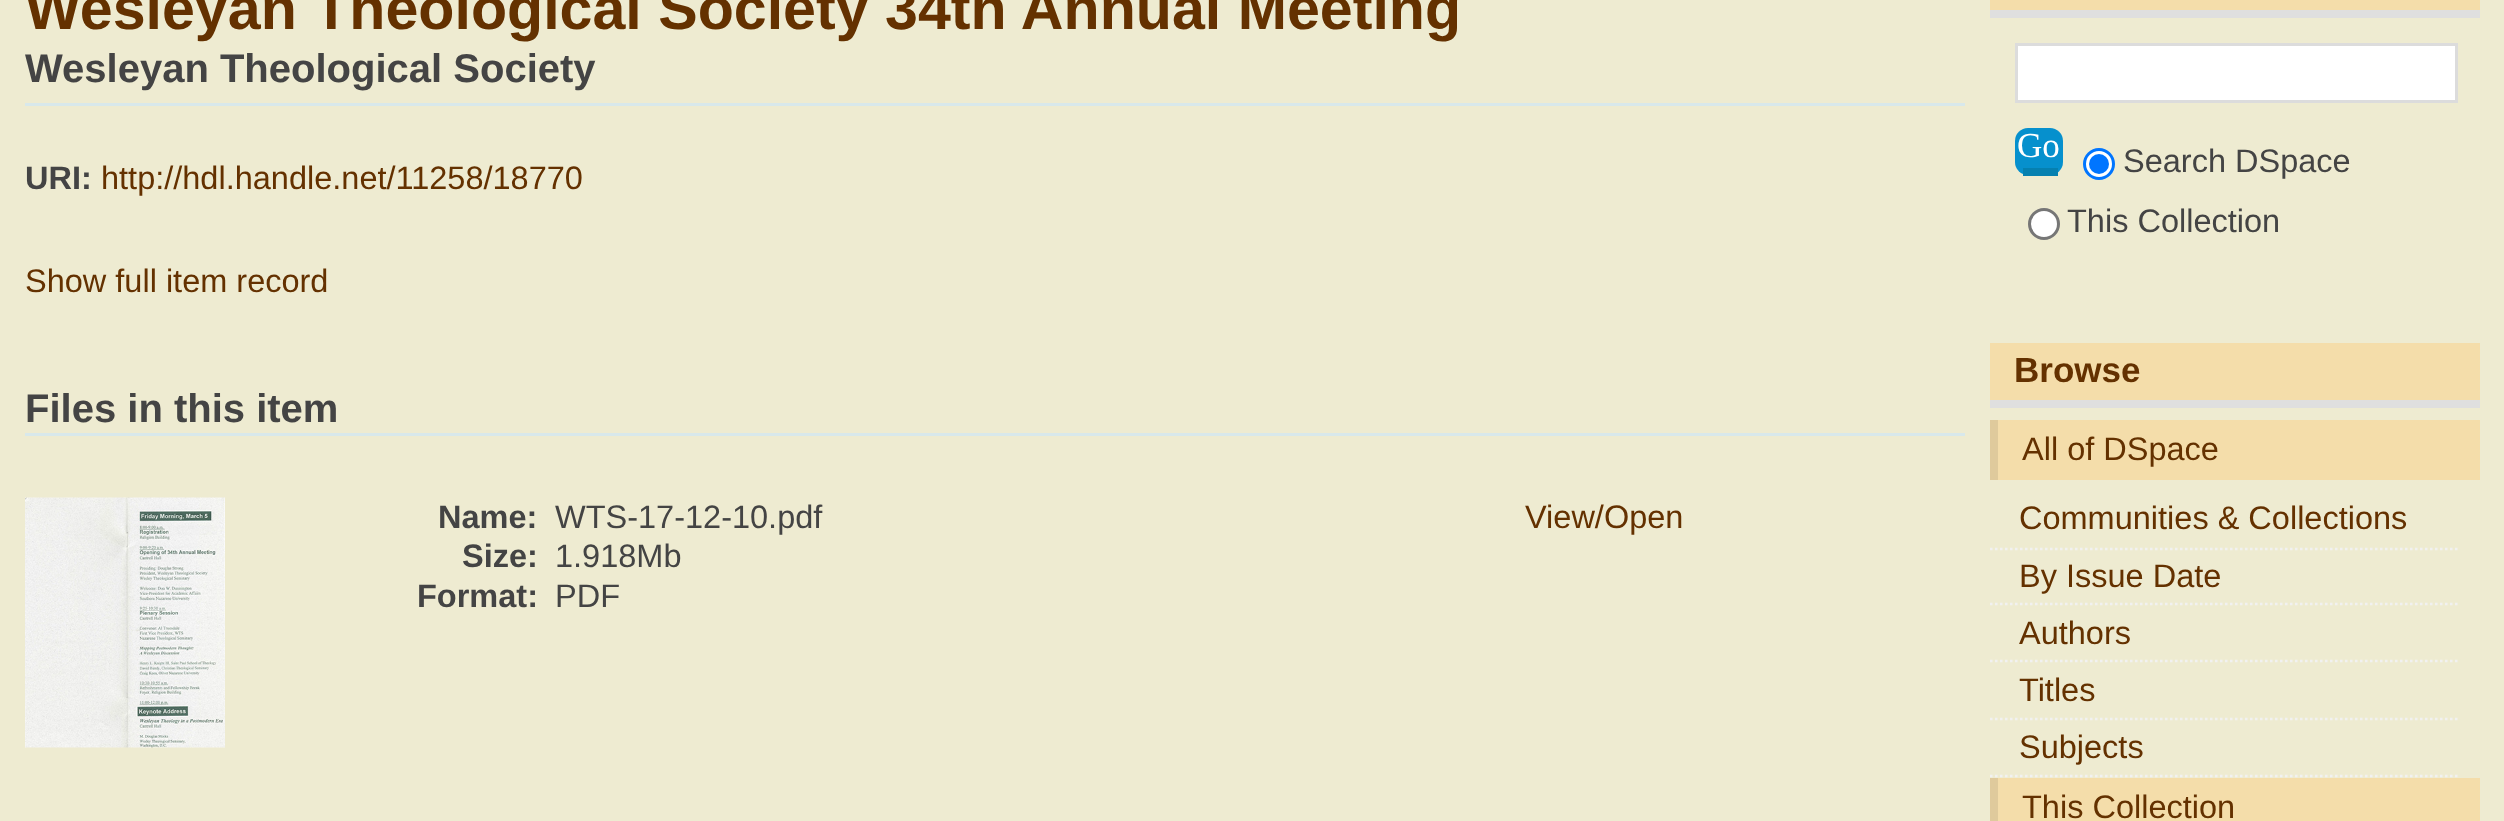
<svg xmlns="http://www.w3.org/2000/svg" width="2504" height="821">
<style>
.a{font:bold 59.15px Liberation Sans;fill:#643100}
.b{font:bold 40px Liberation Sans;fill:#444}
.c{font:bold 32.5px Liberation Sans;fill:#444}
.d{font:32.5px Liberation Sans;fill:#643100}
.e{font:32.5px Liberation Sans;fill:#444}
.f{font:35px Liberation Serif;fill:#fff}
.g{font:bold 35px Liberation Sans;fill:#643100}
</style>
<rect width="100%" height="100%" fill="#eeebd1"/>
<path fill="#d8e8eb" d="M25 103h1940v3H25z"/>
<path fill="#d8e8eb" d="M25 433h1940v3H25z"/>
<image href="1.png" x="25" y="497" width="200" height="251"/>
<path fill="#f4ddaa" d="M1990 0h490v10H1990z"/>
<path fill="#dfdfdf" d="M1990 10h490v8H1990z"/>
<path fill="#fff" stroke="#dcdcdc" stroke-width="3" d="M2016.5 44.5h440v57H2016.5z"/>
<rect fill="#0690cd" x="2015" y="128" width="48" height="47" rx="13"/>
<path fill="#0580b0" d="M2023 168h35v8H2023z"/>
<circle fill="#fff" stroke="#0075ff" stroke-width="3" cx="2099" cy="164" r="14.5"/>
<circle fill="#0075ff" cx="2099" cy="164" r="10"/>
<circle fill="#fff" stroke="#767676" stroke-width="3" cx="2044" cy="224" r="14.5"/>
<path fill="#f4ddaa" d="M1990 343h490v57H1990z"/>
<path fill="#dfdfdf" d="M1990 400h490v8H1990z"/>
<path fill="#f4ddaa" d="M1998 420h482v60H1998z"/>
<path fill="#dfca9c" d="M1990 420h8v60H1990z"/>
<path fill="none" stroke="#f1f1f1" stroke-width="2.5" stroke-dasharray="2.5 2.5" d="M1990 549h470"/>
<path fill="none" stroke="#f1f1f1" stroke-width="2.5" stroke-dasharray="2.5 2.5" d="M1990 604h470"/>
<path fill="none" stroke="#f1f1f1" stroke-width="2.5" stroke-dasharray="2.5 2.5" d="M1990 661h470"/>
<path fill="none" stroke="#f1f1f1" stroke-width="2.5" stroke-dasharray="2.5 2.5" d="M1990 719h470"/>
<path fill="none" stroke="#f1f1f1" stroke-width="2.5" stroke-dasharray="2.5 2.5" d="M1990 776h470"/>
<path fill="#f4ddaa" d="M1998 778h482v43H1998z"/>
<path fill="#dfca9c" d="M1990 778h8v43H1990z"/>
<text class="a" x="25" y="29">Wesleyan Theological Society 34th Annual Meeting</text>
<text class="b" x="25" y="82">Wesleyan Theological Society</text>
<text class="c" x="25" y="189">URI:</text>
<text class="d" x="101" y="189">http://hdl.handle.net/11258/18770</text>
<text class="d" x="25" y="292">Show full item record</text>
<text class="b" x="25" y="422">Files in this item</text>
<text class="c" x="438" y="528">Name:</text>
<text class="e" x="555" y="528">WTS-17-12-10.pdf</text>
<text class="c" x="462" y="567">Size:</text>
<text class="e" x="555" y="567">1.918Mb</text>
<text class="c" x="417" y="607">Format:</text>
<text class="e" x="555" y="607">PDF</text>
<text class="d" x="1525" y="528">View/Open</text>
<text class="f" x="2017" y="157">Go</text>
<text class="e" x="2123" y="172">Search DSpace</text>
<text class="e" x="2067" y="232">This Collection</text>
<text class="g" x="2014" y="382">Browse</text>
<text class="d" x="2022" y="460">All of DSpace</text>
<text class="d" x="2019" y="529">Communities &amp; Collections</text>
<text class="d" x="2019" y="587">By Issue Date</text>
<text class="d" x="2019" y="644">Authors</text>
<text class="d" x="2019" y="701">Titles</text>
<text class="d" x="2019" y="758">Subjects</text>
<text class="d" x="2022" y="818">This Collection</text>
</svg>
